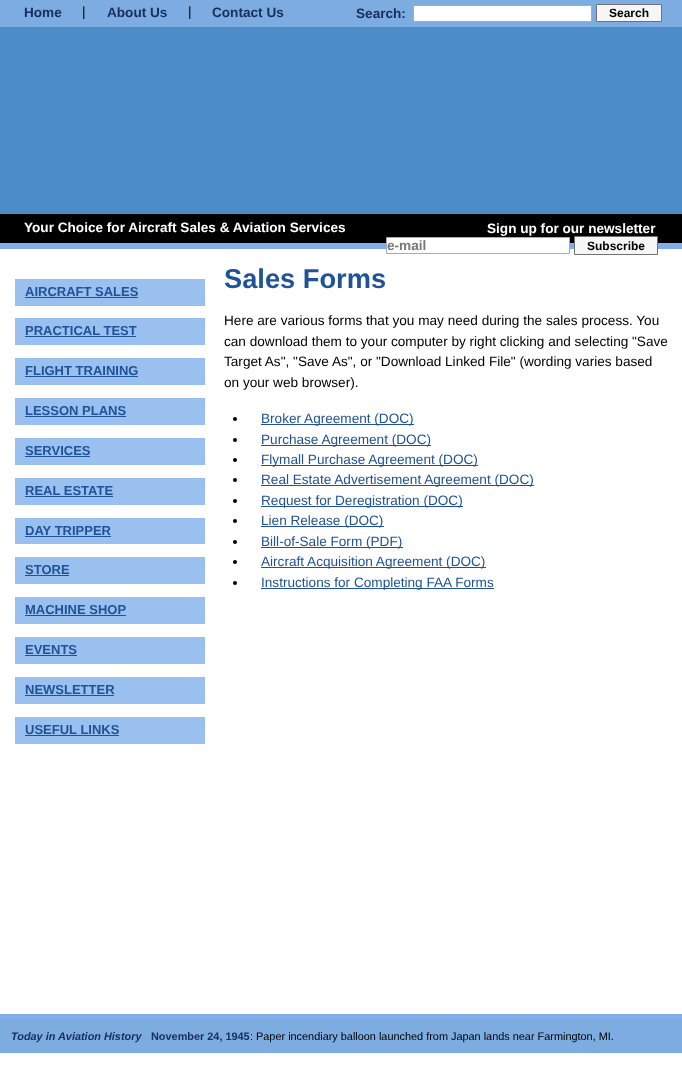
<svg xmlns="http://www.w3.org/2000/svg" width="682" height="1081">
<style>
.a{font:bold 13.6px Liberation Sans;fill:#192f61}
.b{font:13.6px Liberation Sans;fill:#000}
.c{font:bold 12px Liberation Sans;fill:#000}
.d{font:bold 13.6px Liberation Sans;fill:#fff}
.e{font:bold 13.6px Liberation Sans;fill:#777}
.f{font:bold 13px Liberation Sans;fill:#1f5299}
.g{font:bold 27.25px Liberation Sans;fill:#1f5299}
.h{font:13.6px Liberation Sans;fill:#1f5299}
.i{font:italic bold 10.9px Liberation Sans;fill:#192f61}
.j{font:bold 10.9px Liberation Sans;fill:#192f61}
.k{font:10.9px Liberation Sans;fill:#000}
</style>
<rect width="100%" height="100%" fill="#fff"/>
<path fill="#81aeea" d="M0 243h682v6H0z"/>
<path fill="#7dace0" d="M0 0h682v27H0z"/>
<path fill="#fff" stroke="#a5acb2" d="M413.5 5.5h178v16H413.5z"/>
<path fill="#f6f6f6" stroke="#717171" d="M596.5 4.5h65v17H596.5z"/>
<path fill="#4c8cc9" d="M0 27h682v187H0z"/>
<path fill="#000" d="M0 214h682v29H0z"/>
<path fill="#fff" d="M387 238h182v11H387z"/>
<path fill="none" stroke="#a5acb2" d="M386.5 237.5h183v16H386.5z"/>
<path fill="#f6f6f6" stroke="#717171" d="M574.5 236.5h83v18H574.5z"/>
<path fill="#9ac0ef" d="M15 279h190v27H15z"/>
<path fill="#1f5299" d="M25 297h113v1H25z"/>
<path fill="#9ac0ef" d="M15 318h190v27H15z"/>
<path fill="#1f5299" d="M25 336h111v1H25z"/>
<path fill="#9ac0ef" d="M15 358h190v27H15z"/>
<path fill="#1f5299" d="M25 376h113v1H25z"/>
<path fill="#9ac0ef" d="M15 398h190v27H15z"/>
<path fill="#1f5299" d="M25 416h101v1H25z"/>
<path fill="#9ac0ef" d="M15 438h190v27H15z"/>
<path fill="#1f5299" d="M25 456h65v1H25z"/>
<path fill="#9ac0ef" d="M15 478h190v27H15z"/>
<path fill="#1f5299" d="M25 496h88v1H25z"/>
<path fill="#9ac0ef" d="M15 518h190v26H15z"/>
<path fill="#1f5299" d="M25 536h86v1H25z"/>
<path fill="#9ac0ef" d="M15 557h190v27H15z"/>
<path fill="#1f5299" d="M25 575h44v1H25z"/>
<path fill="#9ac0ef" d="M15 597h190v27H15z"/>
<path fill="#1f5299" d="M25 615h101v1H25z"/>
<path fill="#9ac0ef" d="M15 637h190v27H15z"/>
<path fill="#1f5299" d="M25 655h52v1H25z"/>
<path fill="#9ac0ef" d="M15 677h190v27H15z"/>
<path fill="#1f5299" d="M25 695h89v1H25z"/>
<path fill="#9ac0ef" d="M15 717h190v27H15z"/>
<path fill="#1f5299" d="M25 735h94v1H25z"/>
<circle fill="#000" cx="235" cy="419" r="2"/>
<path fill="#1f5299" d="M261 424h153v1H261z"/>
<circle fill="#000" cx="235" cy="440" r="2"/>
<path fill="#1f5299" d="M261 445h170v1H261z"/>
<circle fill="#000" cx="235" cy="460" r="2"/>
<path fill="#1f5299" d="M261 465h217v1H261z"/>
<circle fill="#000" cx="235" cy="480" r="2"/>
<path fill="#1f5299" d="M261 485h273v1H261z"/>
<circle fill="#000" cx="235" cy="501" r="2"/>
<path fill="#1f5299" d="M261 506h202v1H261z"/>
<circle fill="#000" cx="235" cy="521" r="2"/>
<path fill="#1f5299" d="M261 526h123v1H261z"/>
<circle fill="#000" cx="235" cy="542" r="2"/>
<path fill="#1f5299" d="M261 547h142v1H261z"/>
<circle fill="#000" cx="235" cy="562" r="2"/>
<path fill="#1f5299" d="M261 567h225v1H261z"/>
<circle fill="#000" cx="235" cy="583" r="2"/>
<path fill="#1f5299" d="M261 588h233v1H261z"/>
<path fill="#7dace0" d="M0 1019h682v34H0z"/>
<path fill="#81aeea" d="M0 1014h682v5H0z"/>
<text class="a" x="24" y="17">Home</text>
<text class="b" x="82" y="16">|</text>
<text class="a" x="107" y="17">About Us</text>
<text class="b" x="188" y="16">|</text>
<text class="a" x="212" y="17">Contact Us</text>
<text class="a" x="356" y="18">Search:</text>
<text class="c" x="609" y="17">Search</text>
<text class="d" x="24" y="232">Your Choice for Aircraft Sales &amp; Aviation Services</text>
<text class="d" x="487" y="233">Sign up for our newsletter</text>
<text class="e" x="387" y="250">e-mail</text>
<text class="c" x="587" y="250">Subscribe</text>
<text class="f" x="25" y="296">AIRCRAFT SALES</text>
<text class="f" x="25" y="335">PRACTICAL TEST</text>
<text class="f" x="25" y="375">FLIGHT TRAINING</text>
<text class="f" x="25" y="415">LESSON PLANS</text>
<text class="f" x="25" y="455">SERVICES</text>
<text class="f" x="25" y="495">REAL ESTATE</text>
<text class="f" x="25" y="535">DAY TRIPPER</text>
<text class="f" x="25" y="574">STORE</text>
<text class="f" x="25" y="614">MACHINE SHOP</text>
<text class="f" x="25" y="654">EVENTS</text>
<text class="f" x="25" y="694">NEWSLETTER</text>
<text class="f" x="25" y="734">USEFUL LINKS</text>
<text class="g" x="224" y="288">Sales Forms</text>
<text class="b" x="224" y="325">Here are various forms that you may need during the sales process. You</text>
<text class="b" x="224" y="346">can download them to your computer by right clicking and selecting "Save</text>
<text class="b" x="224" y="366">Target As", "Save As", or "Download Linked File" (wording varies based</text>
<text class="b" x="224" y="387">on your web browser).</text>
<text class="h" x="261" y="423">Broker Agreement (DOC)</text>
<text class="h" x="261" y="444">Purchase Agreement (DOC)</text>
<text class="h" x="261" y="464">Flymall Purchase Agreement (DOC)</text>
<text class="h" x="261" y="484">Real Estate Advertisement Agreement (DOC)</text>
<text class="h" x="261" y="505">Request for Deregistration (DOC)</text>
<text class="h" x="261" y="525">Lien Release (DOC)</text>
<text class="h" x="261" y="546">Bill-of-Sale Form (PDF)</text>
<text class="h" x="261" y="566">Aircraft Acquisition Agreement (DOC)</text>
<text class="h" x="261" y="587">Instructions for Completing FAA Forms</text>
<text class="i" x="11" y="1040">Today in Aviation History</text>
<text class="j" x="151" y="1040">November 24, 1945</text>
<text class="k" x="250" y="1040">: Paper incendiary balloon launched from Japan lands near Farmington, MI.</text>
</svg>
